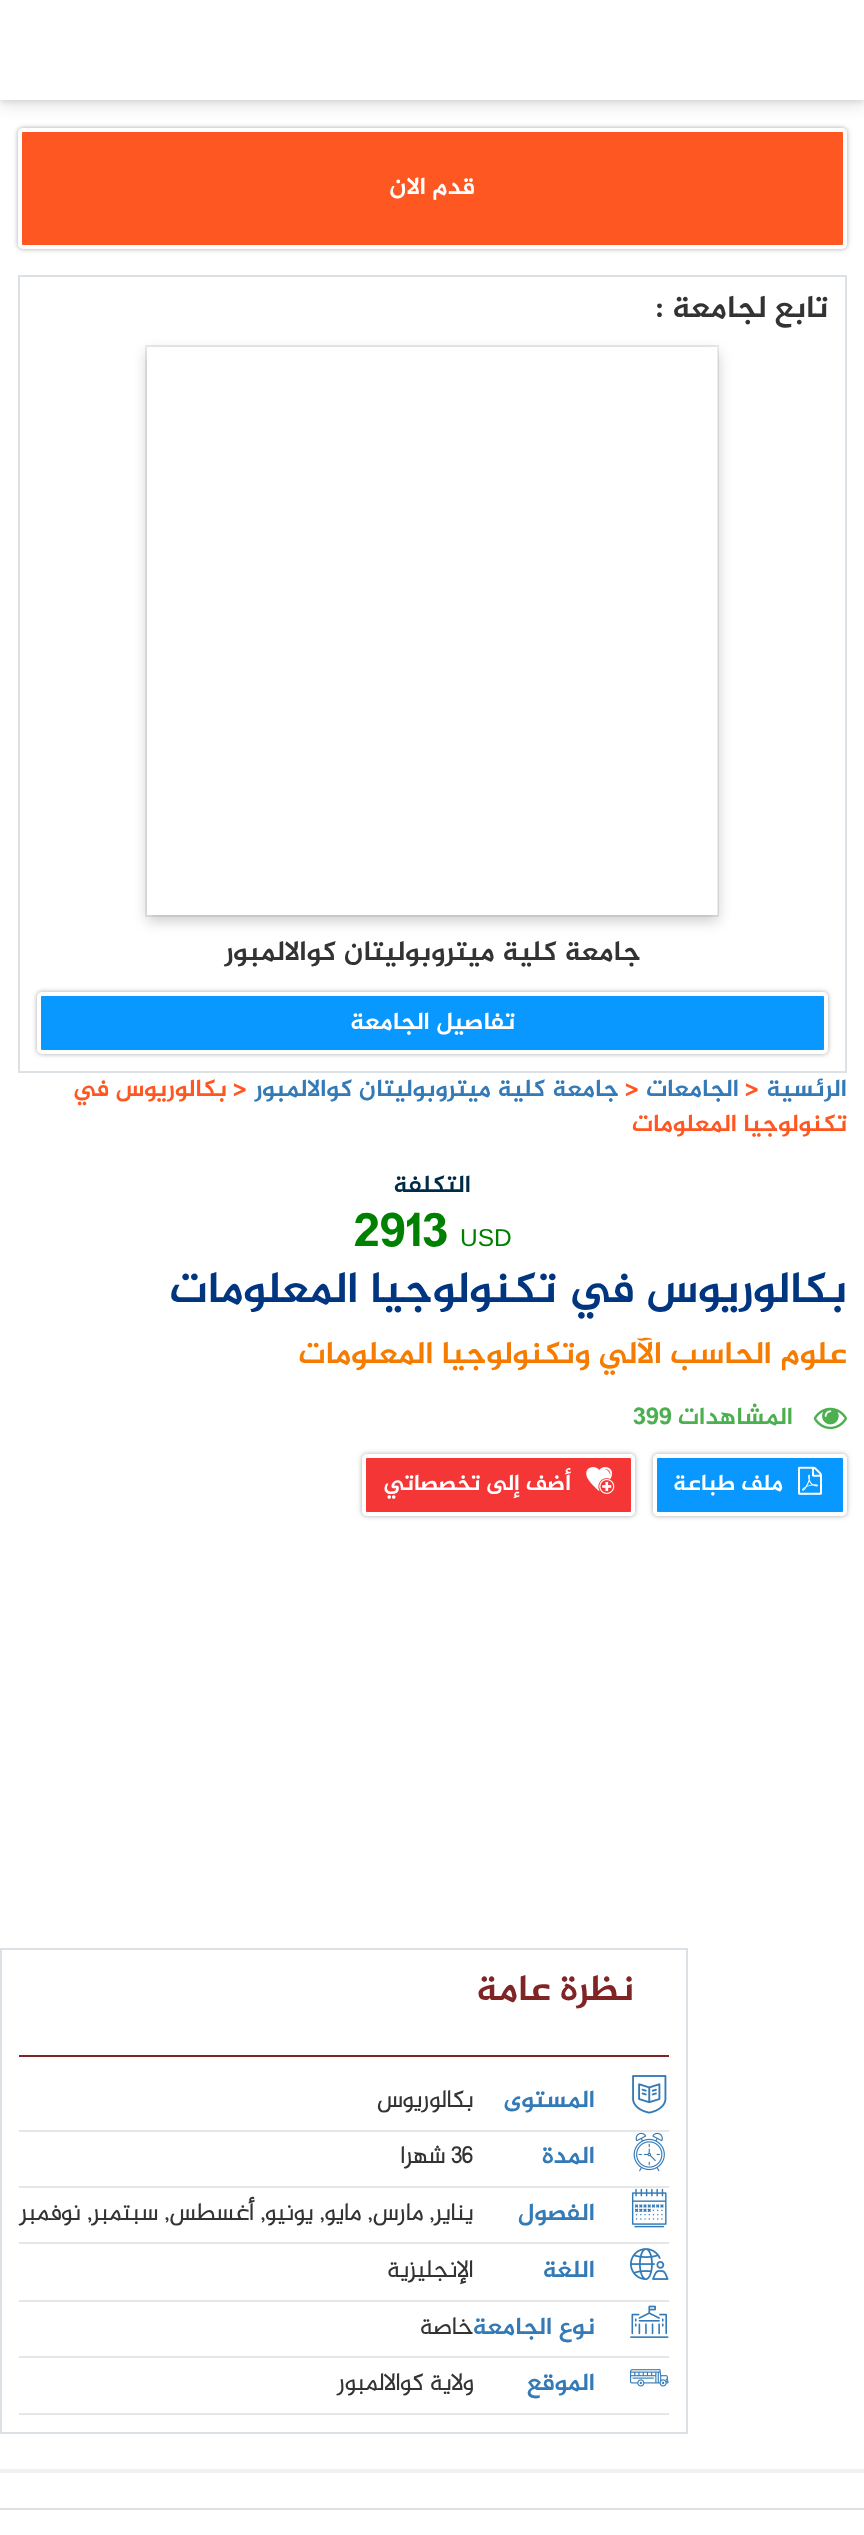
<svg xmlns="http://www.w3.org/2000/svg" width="864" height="2535">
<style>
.a{font:bold 24.5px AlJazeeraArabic;direction:rtl;fill:#fff}
.b{font:bold 31.5px AlJazeeraArabic;direction:rtl;fill:#333}
.c{font:bold 28px AlJazeeraArabic;direction:rtl;fill:#333}
.d{font:bold 24.5px AlJazeeraArabic;direction:rtl;fill:#337ab7}
.e{font:bold 24.5px AlJazeeraArabic;fill:#ff5722}
.f{font:bold 24.5px AlJazeeraArabic;direction:rtl;fill:#ff5722}
.g{font:bold 24.5px AlJazeeraArabic;direction:rtl;fill:#002b46}
.h{font:24.5px Liberation Sans;fill:#008000}
.i{font:bold 49px AlJazeeraArabic;fill:#008000}
.j{font:bold 44.1px AlJazeeraArabic;direction:rtl;fill:#003580}
.k{font:bold 31.5px AlJazeeraArabic;direction:rtl;fill:#f57c00}
.l{font:bold 24.5px AlJazeeraArabic;direction:rtl;fill:#4caf50}
.m{font:bold 24.5px AlJazeeraArabic;fill:#4caf50}
.n{font:bold 22.75px AlJazeeraArabic;direction:rtl;fill:#fff}
.o{font:bold 36.75px AlJazeeraArabic;direction:rtl;fill:#802526}
.p{font:bold 24.5px 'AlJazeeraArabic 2';direction:rtl;fill:#333}
.q{font:bold 24.5px 'AlJazeeraArabic 2';fill:#333}
</style>
<defs>
<clipPath id="clip1"><path d="M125 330h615v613h-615zm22 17h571v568h-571z" clip-rule="evenodd"/></clipPath>
</defs>
<rect width="100%" height="100%" fill="#fff"/>
<rect fill="#aaa" filter="blur(2.5px)" x="18" y="128" width="829" height="121" rx="5"/>
<rect fill="#ff5722" stroke="#fff" stroke-width="4" x="20" y="130" width="825" height="117" rx="3"/>
<path fill="#1b1b1b1a" filter="blur(7px)" d="M0 -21h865v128H0z"/>
<path fill="#1b1b1b1a" filter="blur(2.5px)" d="M0 -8h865v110H0z"/>
<path fill="#fff" d="M0 0h864v100H0z"/>
<path fill="#f0f0f0" d="M0 2469h864v4H0z"/>
<path fill="none" stroke="#dce1e5" stroke-width="2" d="M19 276h827v796H19z"/>
<path fill="none" stroke="#ebebeb" stroke-width="2" d="M146 346h572v570H146z"/>
<g clip-path="url(#clip1)">
<path fill="#00000033" filter="blur(7px)" d="M147 352h571v569H147z"/>
</g>
<rect fill="#aaa" filter="blur(2.5px)" x="37" y="992" width="791" height="62" rx="5"/>
<rect fill="#0898ff" stroke="#fff" stroke-width="4" x="39" y="994" width="787" height="58" rx="3"/>
<image href="1.png" x="813" y="1407" width="34" height="23"/>
<rect fill="#aaa" filter="blur(2.5px)" x="653" y="1454" width="194" height="62" rx="5"/>
<rect fill="#0898ff" stroke="#fff" stroke-width="4" x="655" y="1456" width="190" height="58" rx="3"/>
<image href="2.png" x="798" y="1466" width="24" height="29"/>
<rect fill="#aaa" filter="blur(2.5px)" x="362" y="1454" width="273" height="62" rx="5"/>
<rect fill="#f43636" stroke="#fff" stroke-width="4" x="364" y="1456" width="269" height="58" rx="3"/>
<image href="3.png" x="586" y="1467" width="29" height="27"/>
<path fill="none" stroke="#dce1e5" stroke-width="2" d="M1 1949h686v484H1z"/>
<path fill="#802526" d="M19 2055h650v2H19z"/>
<path fill="#e6e6e6" d="M19 2130h650v2H19z"/>
<image href="4.png" x="632" y="2075" width="35" height="39"/>
<path fill="#e6e6e6" d="M19 2186h650v2H19z"/>
<image href="5.png" x="633" y="2132" width="32" height="40"/>
<path fill="#e6e6e6" d="M19 2242h650v2H19z"/>
<image href="6.png" x="631" y="2188" width="36" height="40"/>
<path fill="#e6e6e6" d="M19 2300h650v2H19z"/>
<image href="7.png" x="630" y="2248" width="39" height="32"/>
<path fill="#e6e6e6" d="M19 2356h650v2H19z"/>
<image href="8.png" x="630" y="2305" width="39" height="33"/>
<path fill="#e6e6e6" d="M19 2413h650v2H19z"/>
<image href="9.png" x="630" y="2369" width="39" height="18"/>
<path fill="none" stroke="#dce1e5" stroke-width="2" d="M-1 2509h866v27H-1z"/>
<text class="a" x="475" y="194">قدم</text>
<text class="a" x="426" y="194">الان</text>
<text class="b" x="828" y="317">تابع لجامعة :</text>
<text class="c" x="641" y="960">جامعة كلية ميتروبوليتان كوالالمبور</text>
<text class="a" x="515" y="1029">تفاصيل الجامعة</text>
<text class="d" x="847" y="1096">الرئسية</text>
<text class="e" x="745" y="1096">&gt;</text>
<text class="d" x="739" y="1096">الجامعات</text>
<text class="e" x="625" y="1096">&gt;</text>
<text class="d" x="619" y="1096">جامعة كلية ميتروبوليتان كوالالمبور</text>
<text class="e" x="233" y="1096">&gt;</text>
<text class="f" x="227" y="1096">بكالوريوس في</text>
<text class="f" x="847" y="1131">تكنولوجيا المعلومات</text>
<text class="g" x="471" y="1192">التكلفة</text>
<text class="h" x="460" y="1246">USD</text>
<text class="i" x="353" y="1246">2913</text>
<text class="j" x="847" y="1302">بكالوريوس في تكنولوجيا المعلومات</text>
<text class="k" x="847" y="1363">علوم الحاسب الآلي وتكنولوجيا المعلومات</text>
<text class="l" x="793" y="1424">المشاهدات</text>
<text class="m" x="633" y="1424">399</text>
<text class="n" x="783" y="1490">ملف طباعة</text>
<text class="n" x="571" y="1490">أضف إلى تخصصاتي</text>
<text class="o" x="634" y="2000">نظرة عامة</text>
<text class="d" x="595" y="2107">المستوى</text>
<text class="p" x="473" y="2107">بكالوريوس</text>
<text class="d" x="595" y="2163">المدة</text>
<text class="q" x="451" y="2163">36</text>
<text class="p" x="445" y="2163">شهرا</text>
<text class="d" x="595" y="2220">الفصول</text>
<text class="p" x="473" y="2220">يناير, مارس, مايو, يونيو, أغسطس, سبتمبر, نوفمبر</text>
<text class="d" x="595" y="2277">اللغة</text>
<text class="p" x="473" y="2277">الإنجليزية</text>
<text class="d" x="595" y="2334">نوع الجامعة</text>
<text class="p" x="473" y="2334">خاصة</text>
<text class="d" x="595" y="2390">الموقع</text>
<text class="p" x="473" y="2390">ولاية كوالالمبور</text>
</svg>
